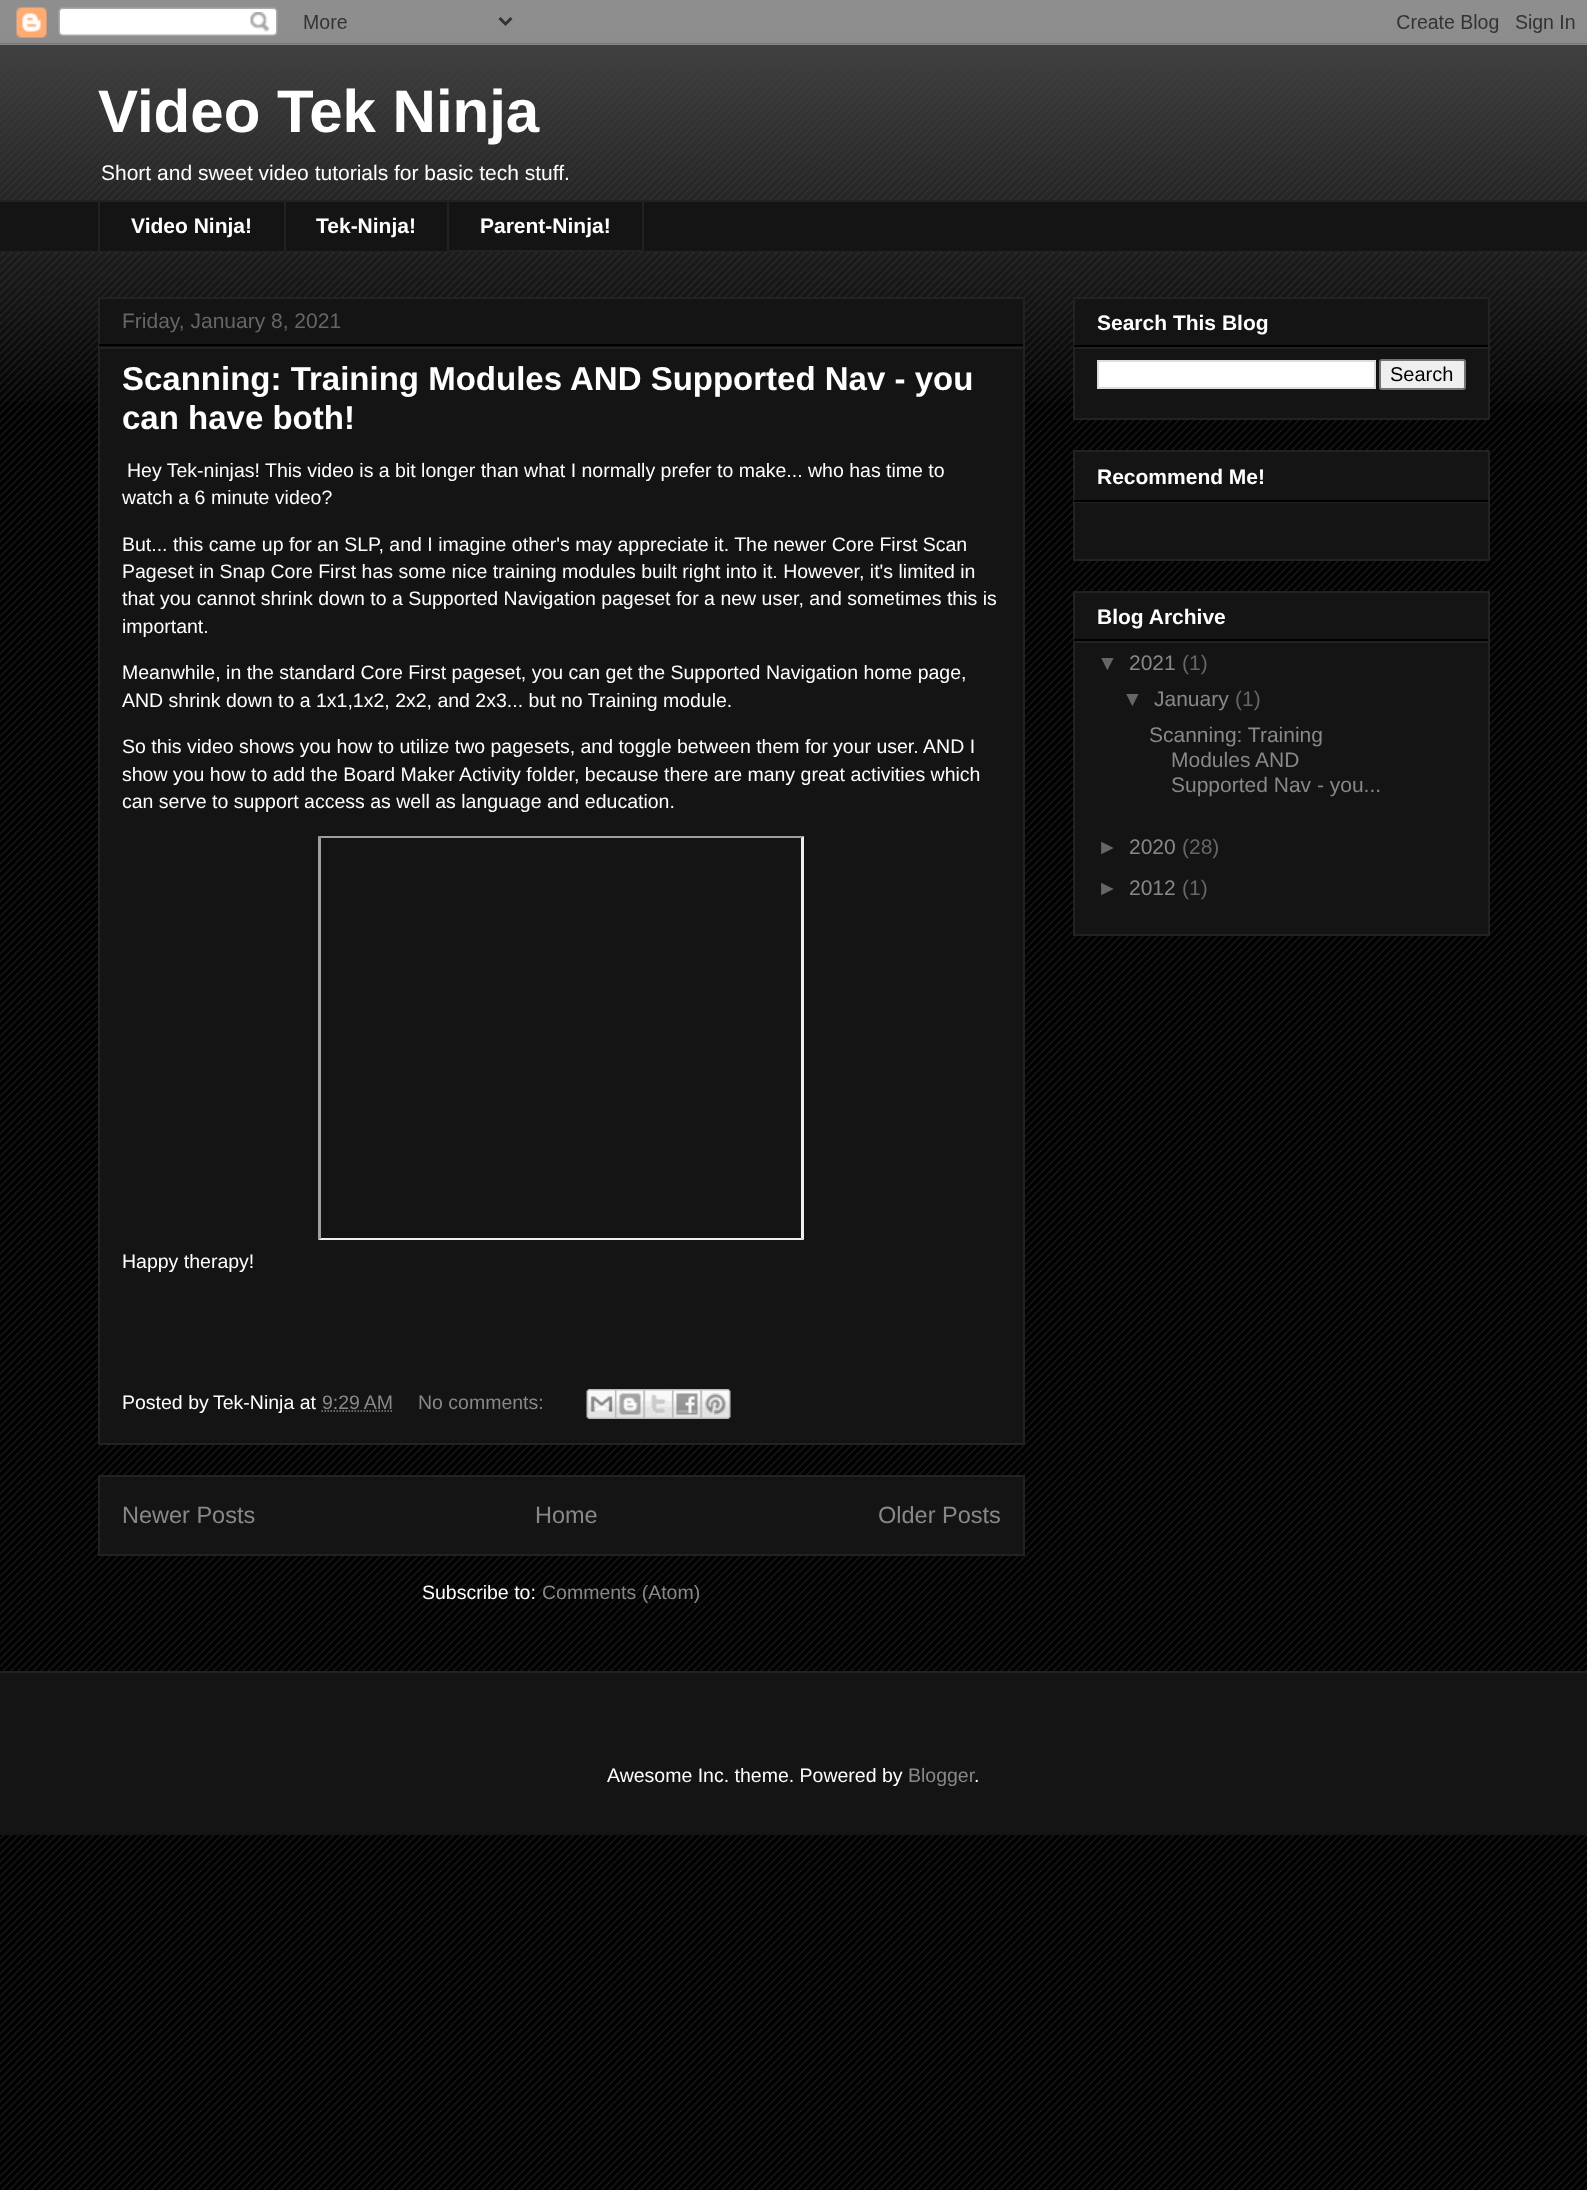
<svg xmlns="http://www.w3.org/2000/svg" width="1587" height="2190">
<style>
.a{font:bold 60px Liberation Sans;fill:#fff}
.b{font:21px Liberation Sans;fill:#fff}
.c{font:bold 21px Liberation Sans;fill:#fff}
.d{font:21px Liberation Sans;fill:#666}
.e{font:bold 33px Liberation Sans;fill:#fff}
.f{font:19.5px Liberation Sans;fill:#fff}
.g{font:19.5px Liberation Sans;fill:#888}
.h{font:23.5px Liberation Sans;fill:#888}
.i{font:20px Liberation Sans;fill:#000}
.j{font:21px Liberation Sans;fill:#888}
</style>
<rect width="100%" height="100%" fill="#000"/>
<image href="1.png" x="0" y="20" width="1587" height="2170"/>
<image href="2.png" x="0" y="0" width="1587" height="402"/>
<image href="3.png" x="0" y="0" width="1587" height="45"/>
<path fill="#141414" d="M0 202h1587v49H0z"/>
<path fill="#222" d="M0 200h1587v2H0z"/>
<path fill="#222" d="M98 200h2v52H98z"/>
<path fill="#222" d="M284 200h2v52H284z"/>
<path fill="none" stroke="#222" stroke-width="2" d="M448 201h195v50H448z"/>
<path fill="#222" d="M0 251h1587v1H0z"/>
<path fill="#141414" stroke="#222" stroke-width="2" d="M99 298h925v1146H99z"/>
<path fill="#000" d="M99 344h924v2H99z"/>
<path fill="#222" d="M99 347h924v2H99z"/>
<path fill="#9f9f9f" d="M318 836h486l-3 2h-480z"/>
<path fill="#eee" d="M804 836v404l-3-2v-400z"/>
<path fill="#eee" d="M804 1240h-486l3-2h480z"/>
<path fill="#9f9f9f" d="M318 1240v-404l3 2v400z"/>
<path fill="none" stroke="#888" stroke-width="1.5" stroke-dasharray="1.5 1.5" d="M321.5 1411h71.5"/>
<image href="4.png" x="586" y="1389" width="29" height="30"/>
<image href="5.png" x="615" y="1389" width="29" height="30"/>
<image href="6.png" x="643" y="1389" width="29" height="30"/>
<image href="7.png" x="672" y="1389" width="29" height="30"/>
<image href="8.png" x="700" y="1389" width="31" height="30"/>
<path fill="#141414" stroke="#222" stroke-width="2" d="M99 1476h925v79H99z"/>
<path fill="#141414" stroke="#222" stroke-width="2" d="M1074 298h415v121H1074z"/>
<path fill="#000" d="M1074 345h414v2H1074z"/>
<path fill="#222" d="M1074 347h414v2H1074z"/>
<path fill="#fff" stroke="#ddd" stroke-width="2" d="M1098 361h277v27H1098z"/>
<rect fill="#efefef" stroke="#767676" stroke-width="2" x="1380" y="360" width="85" height="29" rx="2"/>
<path fill="#141414" stroke="#222" stroke-width="2" d="M1074 451h415v109H1074z"/>
<path fill="#000" d="M1074 500h414v2H1074z"/>
<path fill="#222" d="M1074 502h414v1H1074z"/>
<path fill="#141414" stroke="#222" stroke-width="2" d="M1074 592h415v343H1074z"/>
<path fill="#000" d="M1074 639h414v2H1074z"/>
<path fill="#222" d="M1074 641h414v2H1074z"/>
<path fill="#141414" d="M0 1673h1587v162H0z"/>
<path fill="#222" d="M0 1671h1587v2H0z"/>
<text class="a" x="98" y="132">Video Tek Ninja</text>
<text class="b" x="101" y="180">Short and sweet video tutorials for basic tech stuff.</text>
<text class="c" x="131" y="233">Video Ninja!</text>
<text class="c" x="316" y="233">Tek-Ninja!</text>
<text class="c" x="480" y="233">Parent-Ninja!</text>
<text class="d" x="122" y="328">Friday, January 8, 2021</text>
<text class="e" x="122" y="390">Scanning: Training Modules AND Supported Nav - you</text>
<text class="e" x="122" y="429">can have both!</text>
<text class="f" x="127" y="477">Hey Tek-ninjas! This video is a bit longer than what I normally prefer to make... who has time to</text>
<text class="f" x="122" y="504">watch a 6 minute video?</text>
<text class="f" x="122" y="551">But... this came up for an SLP, and I imagine other's may appreciate it. The newer Core First Scan</text>
<text class="f" x="122" y="578">Pageset in Snap Core First has some nice training modules built right into it. However, it's limited in</text>
<text class="f" x="122" y="605">that you cannot shrink down to a Supported Navigation pageset for a new user, and sometimes this is</text>
<text class="f" x="122" y="633">important.</text>
<text class="f" x="122" y="679">Meanwhile, in the standard Core First pageset, you can get the Supported Navigation home page,</text>
<text class="f" x="122" y="707">AND shrink down to a 1x1,1x2, 2x2, and 2x3... but no Training module.</text>
<text class="f" x="122" y="753">So this video shows you how to utilize two pagesets, and toggle between them for your user. AND I</text>
<text class="f" x="122" y="781">show you how to add the Board Maker Activity folder, because there are many great activities which</text>
<text class="f" x="122" y="808">can serve to support access as well as language and education.</text>
<text class="f" x="122" y="1268">Happy therapy!</text>
<text class="f" x="122" y="1409">Posted by</text>
<text class="f" x="213" y="1409">Tek-Ninja at</text>
<text class="g" x="322" y="1409">9:29 AM</text>
<text class="g" x="418" y="1409">No comments:</text>
<text class="h" x="122" y="1523">Newer Posts</text>
<text class="h" x="535" y="1523">Home</text>
<text class="h" x="878" y="1523">Older Posts</text>
<text class="f" x="422" y="1599">Subscribe to:</text>
<text class="g" x="542" y="1599">Comments (Atom)</text>
<text class="c" x="1097" y="330">Search This Blog</text>
<text class="i" x="1390" y="381">Search</text>
<text class="c" x="1097" y="484">Recommend Me!</text>
<text class="c" x="1097" y="624">Blog Archive</text>
<text class="d" x="1097" y="670">▼</text>
<text class="j" x="1129" y="670">2021</text>
<text class="d" x="1182" y="670">(1)</text>
<text class="d" x="1122" y="706">▼</text>
<text class="j" x="1154" y="706">January</text>
<text class="d" x="1235" y="706">(1)</text>
<text class="j" x="1149" y="742">Scanning: Training</text>
<text class="j" x="1171" y="767">Modules AND</text>
<text class="j" x="1171" y="792">Supported Nav - you...</text>
<text class="d" x="1097" y="854">►</text>
<text class="j" x="1129" y="854">2020</text>
<text class="d" x="1182" y="854">(28)</text>
<text class="d" x="1097" y="895">►</text>
<text class="j" x="1129" y="895">2012</text>
<text class="d" x="1182" y="895">(1)</text>
<text class="f" x="607" y="1782">Awesome Inc. theme. Powered by</text>
<text class="g" x="908" y="1782">Blogger</text>
<text class="f" x="974" y="1782">.</text>
</svg>
